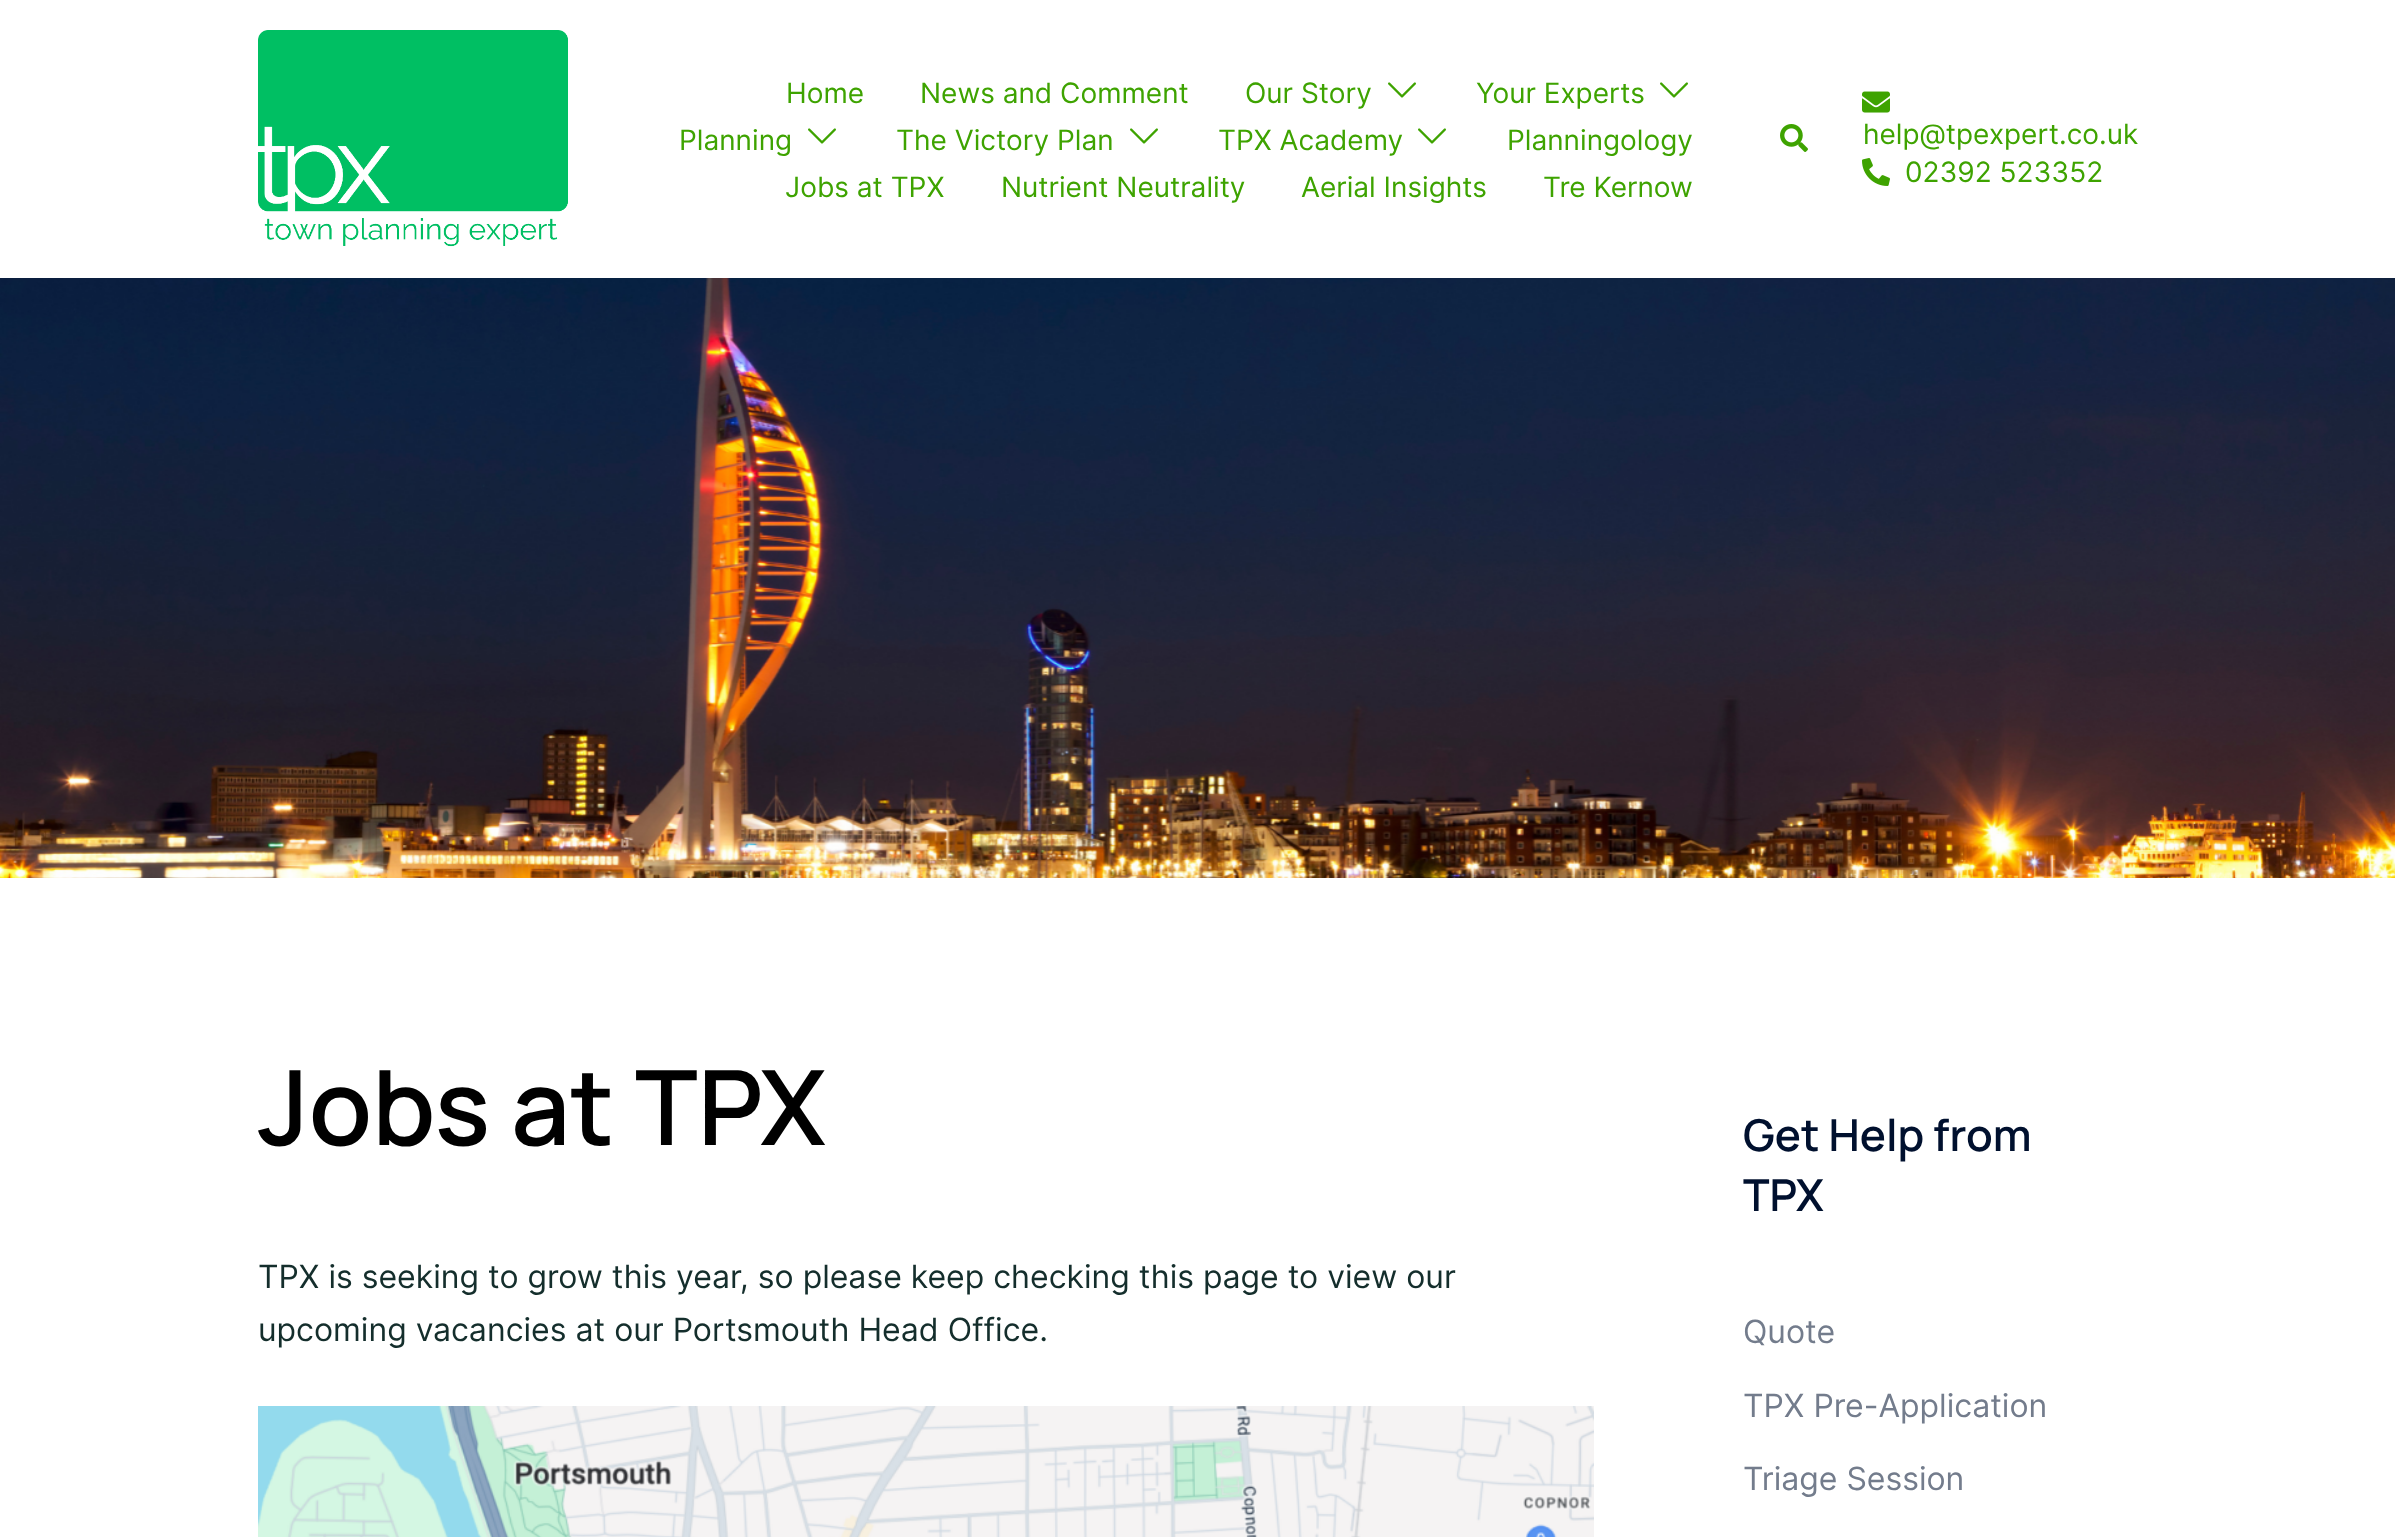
<svg xmlns="http://www.w3.org/2000/svg" width="2395" height="1537">
<style>
.a{font:28px Inter;fill:#3ea300}
.b{font:200 104px Manrope;fill:#000}
.c{font:32px Inter;fill:#142e2c}
.d{font:200 44px Manrope;fill:#00102e}
.e{font:32px Inter;fill:#737c8c}
</style>
<rect width="100%" height="100%" fill="#fff"/>
<image href="1.png" x="258" y="30" width="310" height="217"/>
<image href="2.png" x="1388" y="82" width="28" height="16"/>
<image href="2.png" x="1660" y="82" width="28" height="16"/>
<image href="2.png" x="808" y="128" width="28" height="16"/>
<image href="2.png" x="1130" y="128" width="28" height="16"/>
<image href="2.png" x="1418" y="128" width="28" height="16"/>
<image href="3.png" x="1780" y="124" width="28" height="28"/>
<image href="4.png" x="1862" y="91" width="28" height="22"/>
<image href="5.png" x="1862" y="158" width="28" height="28"/>
<image href="6.png" x="0" y="278" width="2395" height="600"/>
<image href="7.png" x="258" y="1406" width="1336" height="131"/>
<text class="a" x="786" y="103">Home</text>
<text class="a" x="920" y="103">News and Comment</text>
<text class="a" x="1245" y="103">Our Story</text>
<text class="a" x="1476" y="103">Your Experts</text>
<text class="a" x="679" y="150">Planning</text>
<text class="a" x="896" y="150">The Victory Plan</text>
<text class="a" x="1218" y="150">TPX Academy</text>
<text class="a" x="1507" y="150">Planningology</text>
<text class="a" x="785" y="197">Jobs at TPX</text>
<text class="a" x="1001" y="197">Nutrient Neutrality</text>
<text class="a" x="1301" y="197">Aerial Insights</text>
<text class="a" x="1543" y="197">Tre Kernow</text>
<text class="a" x="1863" y="144">help@tpexpert.co.uk</text>
<text class="a" x="1905" y="182">02392 523352</text>
<text class="b" x="258" y="1145">Jobs at TPX</text>
<text class="c" x="258" y="1288">TPX is seeking to grow this year, so please keep checking this page to view our</text>
<text class="c" x="258" y="1341">upcoming vacancies at our Portsmouth Head Office.</text>
<text class="d" x="1743" y="1151">Get Help from</text>
<text class="d" x="1743" y="1211">TPX</text>
<text class="e" x="1743" y="1343">Quote</text>
<text class="e" x="1743" y="1417">TPX Pre-Application</text>
<text class="e" x="1743" y="1490">Triage Session</text>
</svg>
